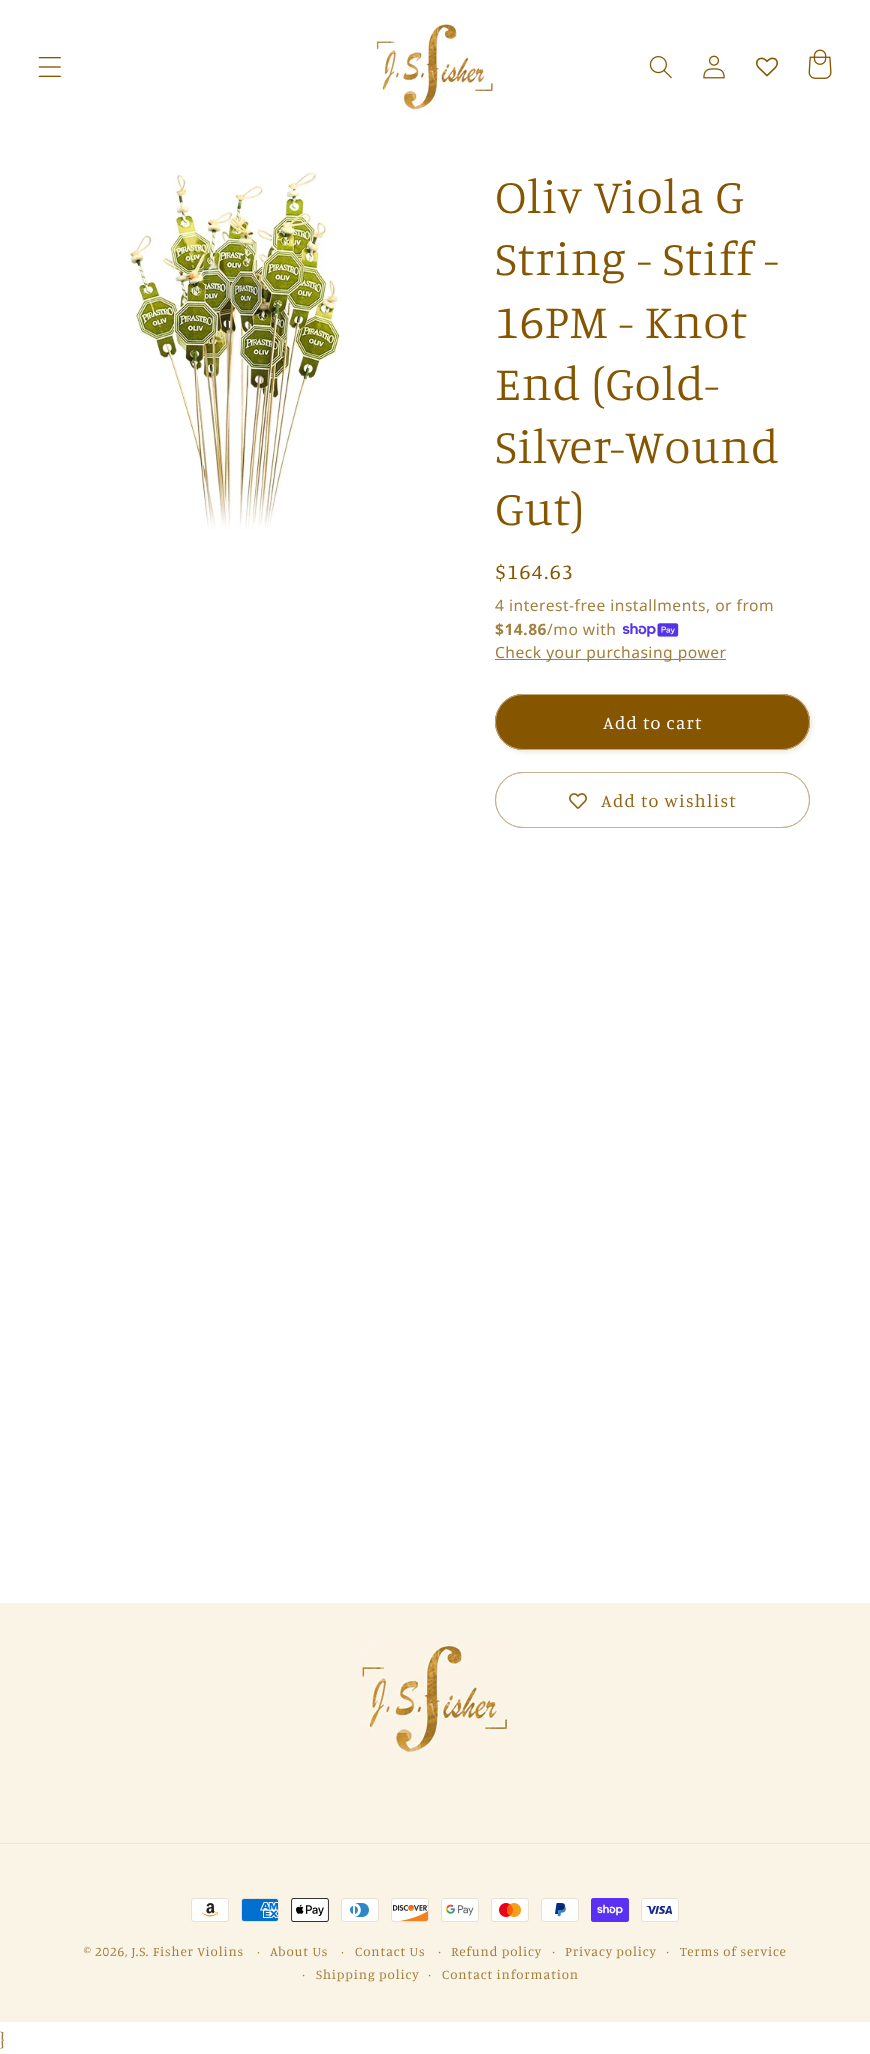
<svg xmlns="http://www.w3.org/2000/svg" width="870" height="2054">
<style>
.a{font:300 48px Manuale;letter-spacing:0.75px;fill:#865500}
.b{font:21.5px Manuale;letter-spacing:1.5px;fill:#865500}
.c{font:15.6px Noto Sans;letter-spacing:0.5px;fill:#a48040}
.d{font:bold 15.6px Noto Sans;letter-spacing:0.5px;fill:#a48040}
.e{font:15.6px Noto Sans;letter-spacing:0.5px;fill:#a37d3a}
.f{font:18px Manuale;letter-spacing:1.25px;fill:#fff}
.g{font:18px Manuale;letter-spacing:1.25px;fill:#92661a}
.h{font:13.25px Manuale;letter-spacing:0.85px;fill:#a37d3a}
.i{font:14px Manuale;letter-spacing:0.85px;fill:#a37d3a}
.j{font:19px Manuale;letter-spacing:0.75px;fill:#a48040}
</style>
<rect width="100%" height="100%" fill="#fff"/>
<image href="1.png" x="38" y="57" width="23" height="20"/>
<image href="2.png" x="375" y="23" width="120" height="92"/>
<image href="3.png" x="649" y="56" width="23" height="23"/>
<image href="4.png" x="703" y="55" width="22" height="24"/>
<image href="5.png" x="756" y="57" width="22" height="20"/>
<image href="6.png" x="808" y="49" width="24" height="30"/>
<image href="7.png" x="128" y="171" width="214" height="359"/>
<image href="8.png" x="622" y="623" width="57" height="14"/>
<path fill="#a48040" d="M495 659h231v1H495z"/>
<rect fill="#86550026" filter="blur(2.5px)" x="497" y="696" width="315" height="56" rx="28"/>
<rect fill="#865500" x="495" y="694" width="315" height="56" rx="28"/>
<rect fill="none" stroke="#865500" x="495.5" y="694.5" width="314" height="55" rx="27.5"/>
<rect fill="none" stroke="#ffffff80" x="495.5" y="694.5" width="314" height="55" rx="27.5"/>
<image href="9.png" x="569" y="793" width="18" height="16"/>
<rect fill="none" stroke="#92661a" x="495.5" y="772.5" width="314" height="55" rx="27.5"/>
<rect fill="none" stroke="#ffffff80" x="495.5" y="772.5" width="314" height="55" rx="27.5"/>
<path fill="#f9f4e6" d="M0 1603h870v419H0z"/>
<image href="10.png" x="360" y="1639" width="150" height="114"/>
<path fill="#f0e7d4" d="M0 1843h870v1H0z"/>
<image href="11.png" x="191" y="1898" width="38" height="24"/>
<image href="12.png" x="241" y="1898" width="38" height="24"/>
<image href="13.png" x="291" y="1898" width="38" height="24"/>
<image href="14.png" x="341" y="1898" width="38" height="24"/>
<image href="15.png" x="391" y="1898" width="38" height="24"/>
<image href="16.png" x="441" y="1898" width="38" height="24"/>
<image href="17.png" x="491" y="1898" width="38" height="24"/>
<image href="18.png" x="541" y="1898" width="38" height="24"/>
<image href="19.png" x="591" y="1898" width="38" height="24"/>
<image href="20.png" x="641" y="1898" width="38" height="24"/>
<text class="a" x="495" y="213">Oliv Viola G</text>
<text class="a" x="495" y="275">String - Stiff -</text>
<text class="a" x="495" y="338">16PM - Knot</text>
<text class="a" x="495" y="400">End (Gold-</text>
<text class="a" x="495" y="463">Silver-Wound</text>
<text class="a" x="495" y="525">Gut)</text>
<text class="b" x="495" y="579">$164.63</text>
<text class="c" x="495" y="611">4 interest-free installments, or from</text>
<text class="d" x="495" y="635">$14.86</text>
<text class="c" x="547" y="635">/mo with</text>
<text class="e" x="495" y="658">Check your purchasing power</text>
<text class="f" x="603" y="729">Add to cart</text>
<text class="g" x="601" y="807">Add to wishlist</text>
<text class="h" x="84" y="1956">© 2026, J.S. Fisher Violins</text>
<text class="h" x="257" y="1956">·</text>
<text class="h" x="270" y="1956">About Us</text>
<text class="h" x="341" y="1956">·</text>
<text class="h" x="355" y="1956">Contact Us</text>
<text class="i" x="438" y="1956">·</text>
<text class="h" x="451" y="1956">Refund policy</text>
<text class="i" x="552" y="1956">·</text>
<text class="h" x="565" y="1956">Privacy policy</text>
<text class="i" x="666" y="1956">·</text>
<text class="h" x="680" y="1956">Terms of service</text>
<text class="i" x="302" y="1979">·</text>
<text class="h" x="316" y="1979">Shipping policy</text>
<text class="i" x="428" y="1979">·</text>
<text class="h" x="442" y="1979">Contact information</text>
<text class="j" x="0" y="2045">}</text>
</svg>
